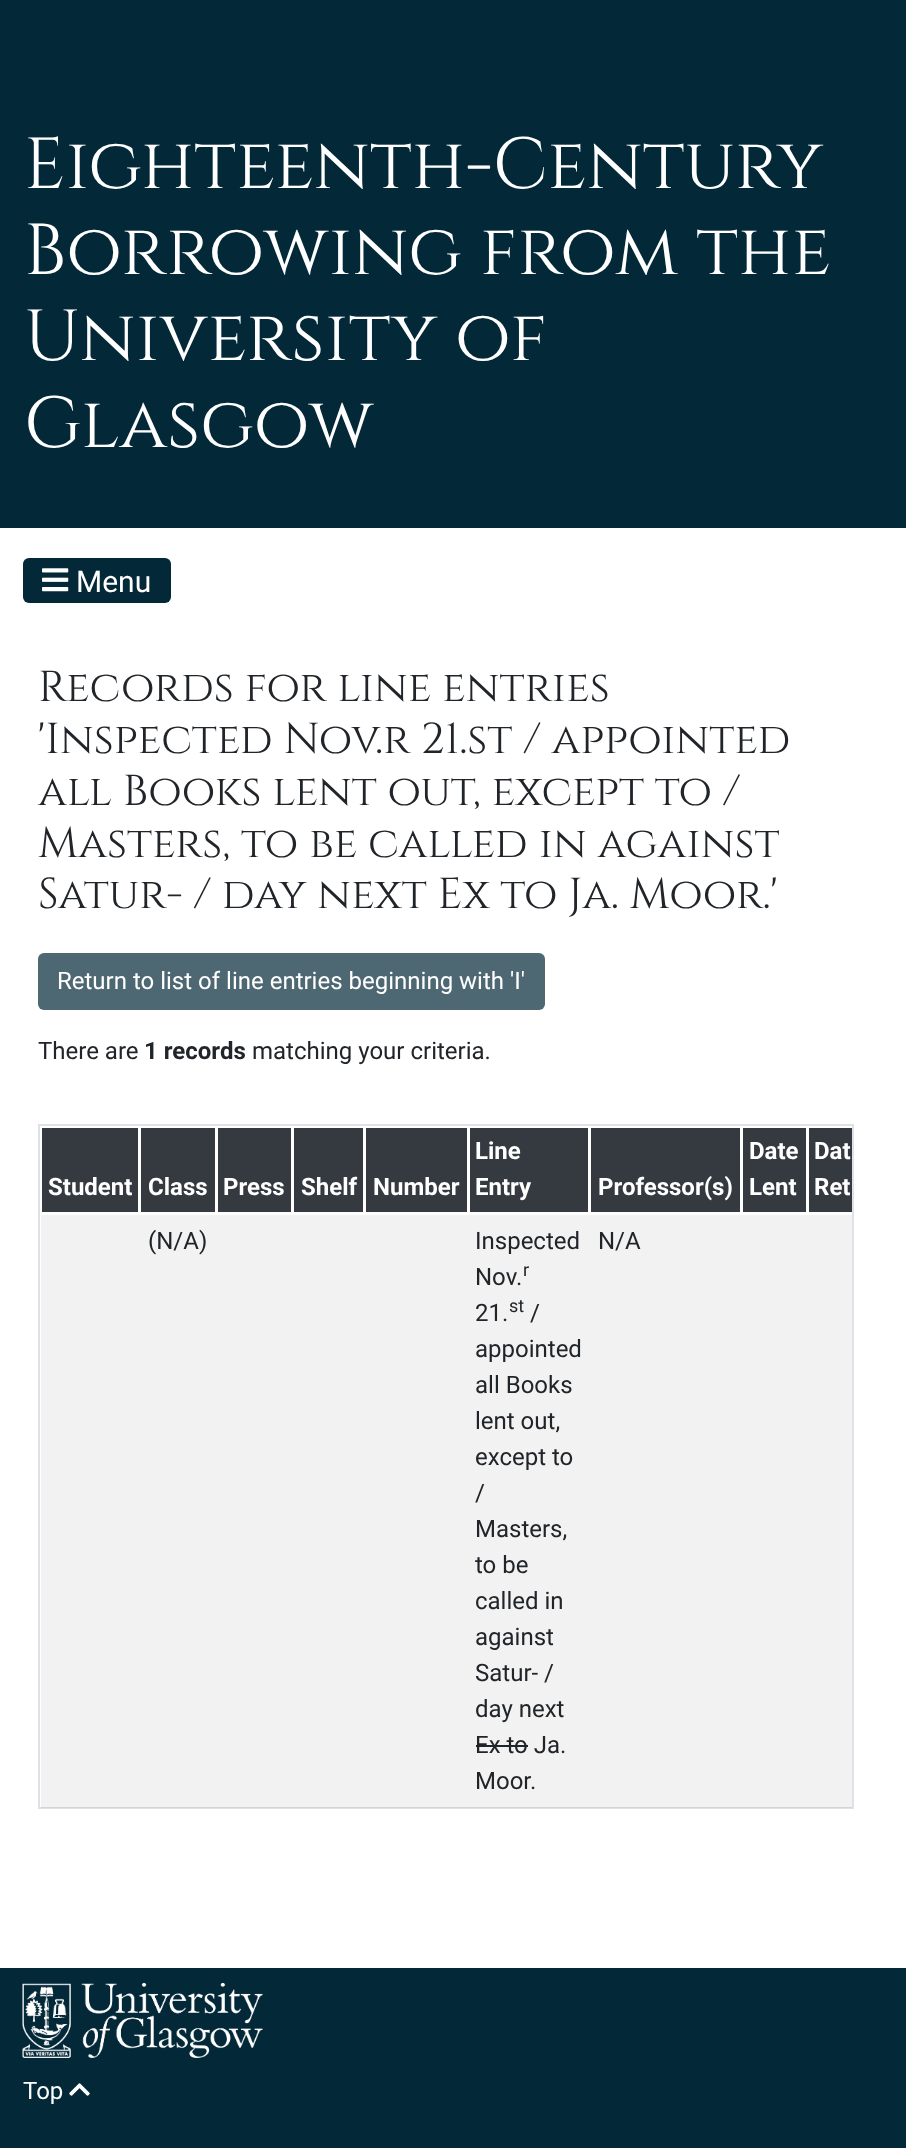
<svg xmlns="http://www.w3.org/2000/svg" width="906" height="2148">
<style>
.a{font:72px Cinzel;fill:#fff}
.b{font:30px Roboto;fill:#fff}
.c{font:43.25px Cinzel;fill:#212529}
.d{font:24px Roboto;fill:#fff}
.e{font:24px Roboto;fill:#212529}
.f{font:bold 24px Roboto;fill:#212529}
.g{font:bold 24px Roboto;fill:#fff}
.h{font:18px Roboto;fill:#212529}
</style>
<rect width="100%" height="100%" fill="#fff"/>
<path fill="#032838" d="M0 0h906v528H0z"/>
<rect fill="#032838" x="23" y="558" width="148" height="45" rx="6"/>
<image href="1.png" x="42" y="568" width="27" height="24"/>
<rect fill="#4e6873" x="38" y="953" width="507" height="57" rx="6"/>
<path fill="none" stroke="#dee2e6" stroke-width="2" d="M39 1125h814v683H39z"/>
<path fill="#343a40" d="M42 1128h96v84H42z"/>
<path fill="#343a40" d="M141 1128h74v84H141z"/>
<path fill="#343a40" d="M218 1128h73v84H218z"/>
<path fill="#343a40" d="M294 1128h69v84H294z"/>
<path fill="#343a40" d="M366 1128h101v84H366z"/>
<path fill="#343a40" d="M470 1128h118v84H470z"/>
<path fill="#343a40" d="M591 1128h149v84H591z"/>
<path fill="#343a40" d="M743 1128h63v84H743z"/>
<path fill="#343a40" d="M809 1128h43v84H809z"/>
<path fill="#0000000d" d="M41 1215h811v593H41z"/>
<path fill="#212529" d="M476 1745h52v2H476z"/>
<path fill="#032838" d="M0 1968h906v180H0z"/>
<image href="2.png" x="22" y="1983" width="241" height="75"/>
<image href="3.png" x="69" y="2083" width="21" height="13"/>
<text class="a" x="24" y="188">Eighteenth-Century</text>
<text class="a" x="24" y="274">Borrowing from the</text>
<text class="a" x="24" y="360">University of</text>
<text class="a" x="24" y="447">Glasgow</text>
<text class="b" x="76" y="592">Menu</text>
<text class="c" x="38" y="701">Records for line entries</text>
<text class="c" x="38" y="753">'Inspected Nov.r 21.st / appointed</text>
<text class="c" x="38" y="805">all Books lent out, except to /</text>
<text class="c" x="38" y="857">Masters, to be called in against</text>
<text class="c" x="38" y="908">Satur- / day next Ex to Ja. Moor.'</text>
<text class="d" x="57" y="989">Return to list of line entries beginning with 'I'</text>
<text class="e" x="38" y="1059">There are</text>
<text class="f" x="144" y="1059">1 records</text>
<text class="e" x="252" y="1059">matching your criteria.</text>
<text class="g" x="48" y="1195">Student</text>
<text class="g" x="148" y="1195">Class</text>
<text class="g" x="223" y="1195">Press</text>
<text class="g" x="301" y="1195">Shelf</text>
<text class="g" x="373" y="1195">Number</text>
<text class="g" x="475" y="1159">Line</text>
<text class="g" x="475" y="1195">Entry</text>
<text class="g" x="598" y="1195">Professor(s)</text>
<text class="g" x="749" y="1159">Date</text>
<text class="g" x="749" y="1195">Lent</text>
<text class="g" x="814" y="1159">Dat</text>
<text class="g" x="814" y="1195">Ret</text>
<text class="e" x="148" y="1249">(N/A)</text>
<text class="e" x="475" y="1249">Inspected</text>
<text class="e" x="475" y="1285">Nov.</text>
<text class="h" x="523" y="1276">r</text>
<text class="e" x="475" y="1321">21.</text>
<text class="h" x="509" y="1312">st</text>
<text class="e" x="530" y="1321">/</text>
<text class="e" x="475" y="1357">appointed</text>
<text class="e" x="475" y="1393">all Books</text>
<text class="e" x="475" y="1429">lent out,</text>
<text class="e" x="475" y="1465">except to</text>
<text class="e" x="475" y="1501">/</text>
<text class="e" x="475" y="1537">Masters,</text>
<text class="e" x="475" y="1573">to be</text>
<text class="e" x="475" y="1609">called in</text>
<text class="e" x="475" y="1645">against</text>
<text class="e" x="475" y="1681">Satur- /</text>
<text class="e" x="475" y="1717">day next</text>
<text class="e" x="475" y="1753">Ex to Ja.</text>
<text class="e" x="475" y="1789">Moor.</text>
<text class="e" x="598" y="1249">N/A</text>
<text class="d" x="23" y="2099">Top</text>
</svg>
